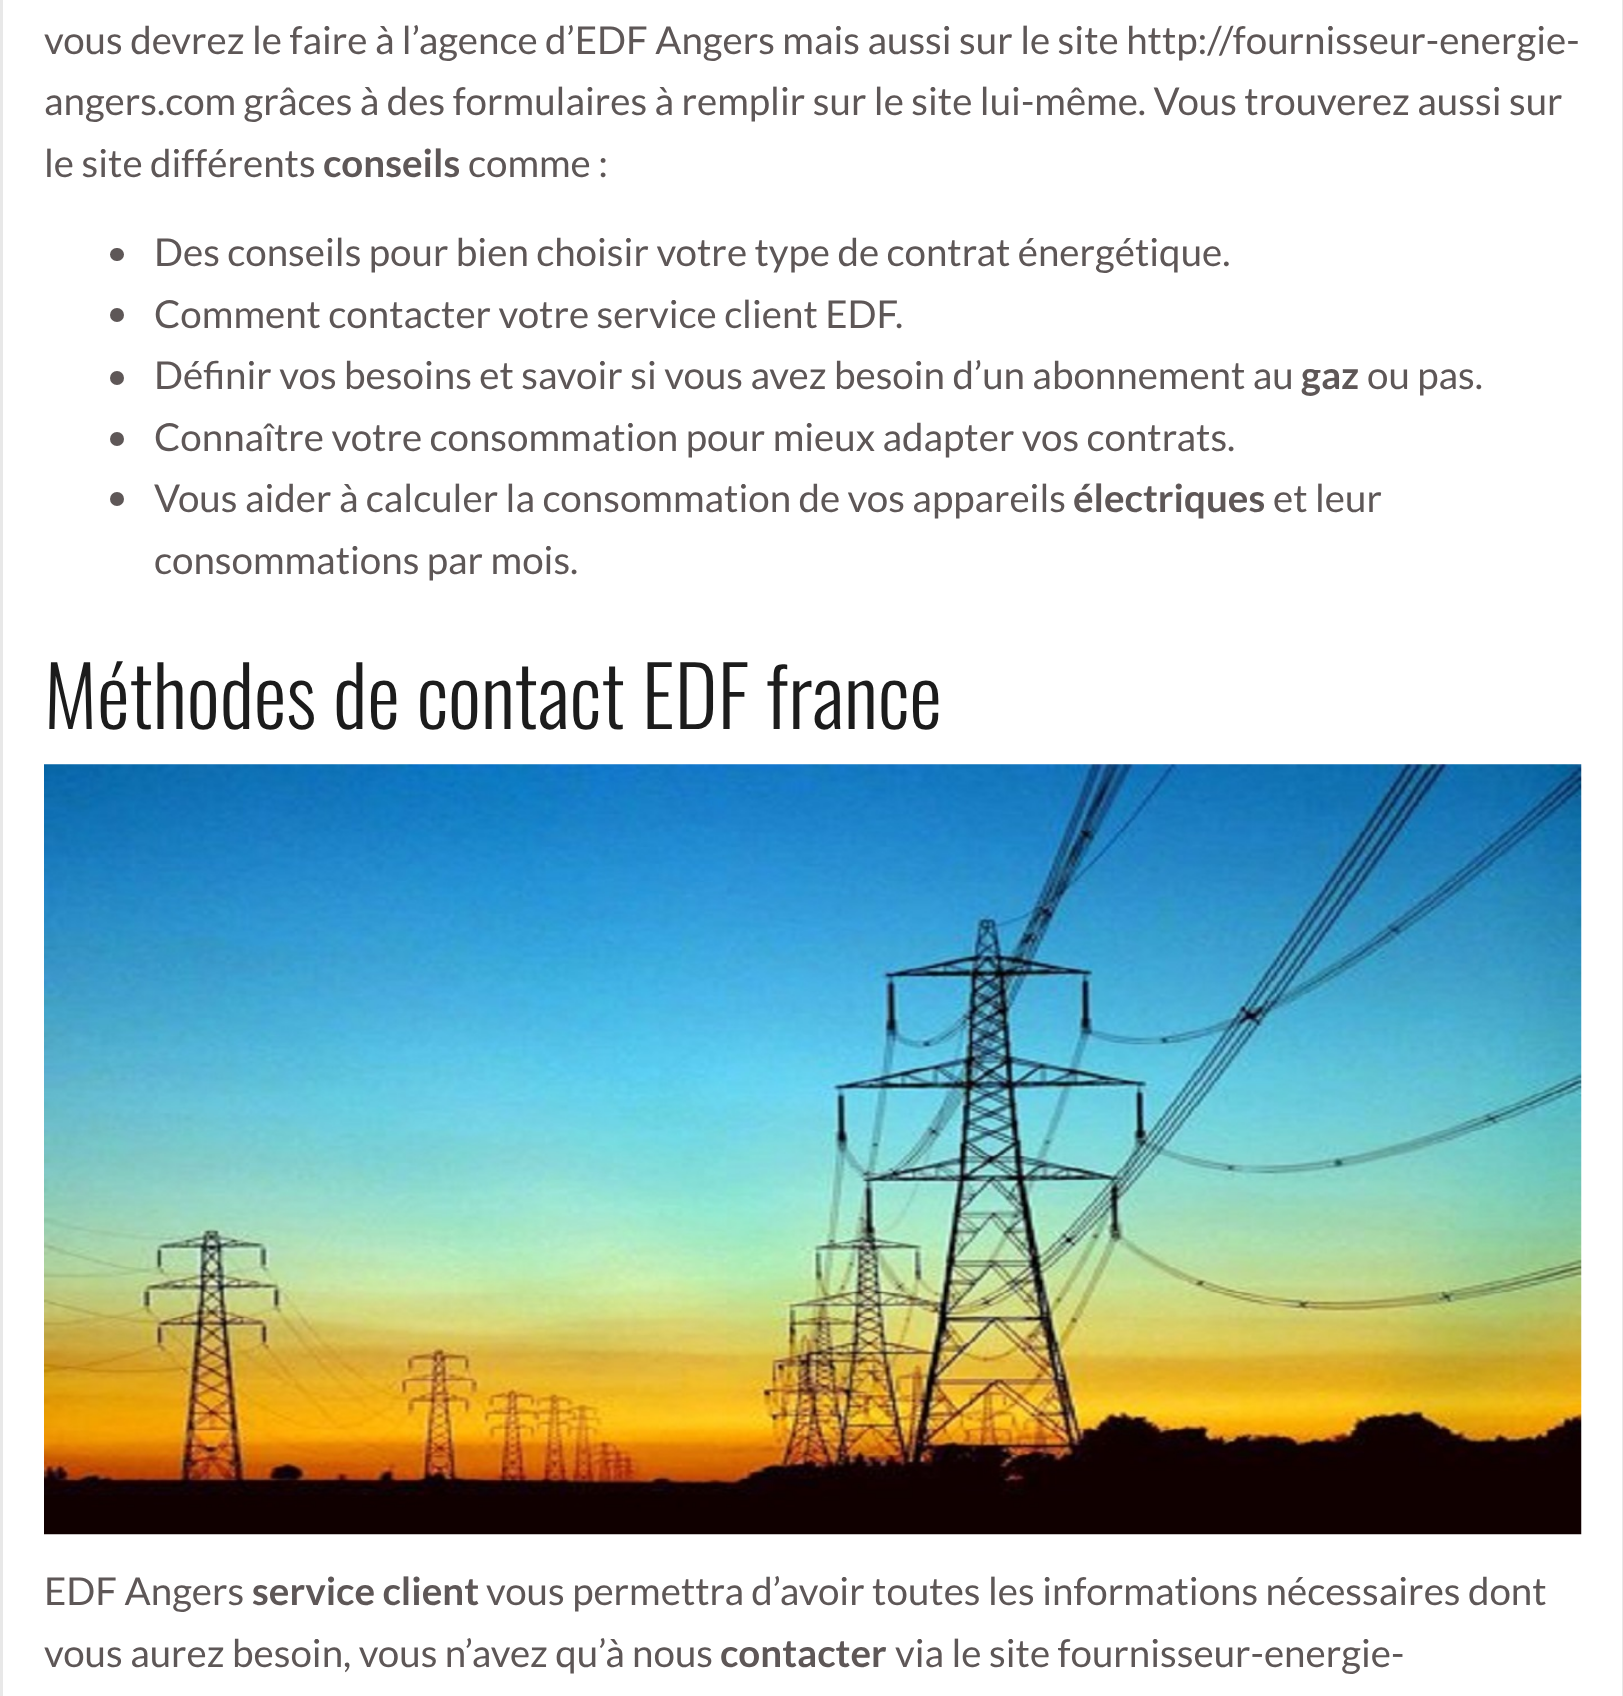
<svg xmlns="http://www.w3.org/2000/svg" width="1623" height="1696">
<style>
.a{font:38.5px Lato;fill:#5e5757}
.b{font:bold 38.5px Lato;fill:#5e5757}
.c{font:300 82.5px Oswald;fill:#1c1c1c}
</style>
<rect width="100%" height="100%" fill="#fff"/>
<path fill="none" stroke="#e8e8e8" stroke-width="3" d="M1.5 -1.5h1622v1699H1.5z"/>
<rect fill="#5e5757" x="110" y="248" width="14" height="13" rx="6.5"/>
<circle fill="#5e5757" cx="117" cy="315" r="7"/>
<circle fill="#5e5757" cx="117" cy="378" r="7"/>
<circle fill="#5e5757" cx="117" cy="439" r="7"/>
<circle fill="#5e5757" cx="117" cy="499" r="7"/>
<image href="1.png" x="44" y="764" width="1538" height="771"/>
<text class="a" x="44" y="54">vous devrez le faire à l’agence d’EDF Angers mais aussi sur le site http://fournisseur-energie-</text>
<text class="a" x="44" y="115">angers.com grâces à des formulaires à remplir sur le site lui-même. Vous trouverez aussi sur</text>
<text class="a" x="44" y="177">le site différents</text>
<text class="b" x="323" y="177">conseils</text>
<text class="a" x="468" y="177">comme :</text>
<text class="a" x="154" y="266">Des conseils pour bien choisir votre type de contrat énergétique.</text>
<text class="a" x="154" y="328">Comment contacter votre service client EDF.</text>
<text class="a" x="154" y="389">Définir vos besoins et savoir si vous avez besoin d’un abonnement au</text>
<text class="b" x="1301" y="389">gaz</text>
<text class="a" x="1367" y="389">ou pas.</text>
<text class="a" x="154" y="451">Connaître votre consommation pour mieux adapter vos contrats.</text>
<text class="a" x="154" y="512">Vous aider à calculer la consommation de vos appareils</text>
<text class="b" x="1073" y="512">électriques</text>
<text class="a" x="1273" y="512">et leur</text>
<text class="a" x="154" y="574">consommations par mois.</text>
<text class="c" x="44" y="729">Méthodes de contact EDF france</text>
<text class="a" x="44" y="1605">EDF Angers</text>
<text class="b" x="252" y="1605">service client</text>
<text class="a" x="486" y="1605">vous permettra d’avoir toutes les informations nécessaires dont</text>
<text class="a" x="44" y="1667">vous aurez besoin, vous n’avez qu’à nous</text>
<text class="b" x="720" y="1667">contacter</text>
<text class="a" x="895" y="1667">via le site fournisseur-energie-</text>
</svg>
